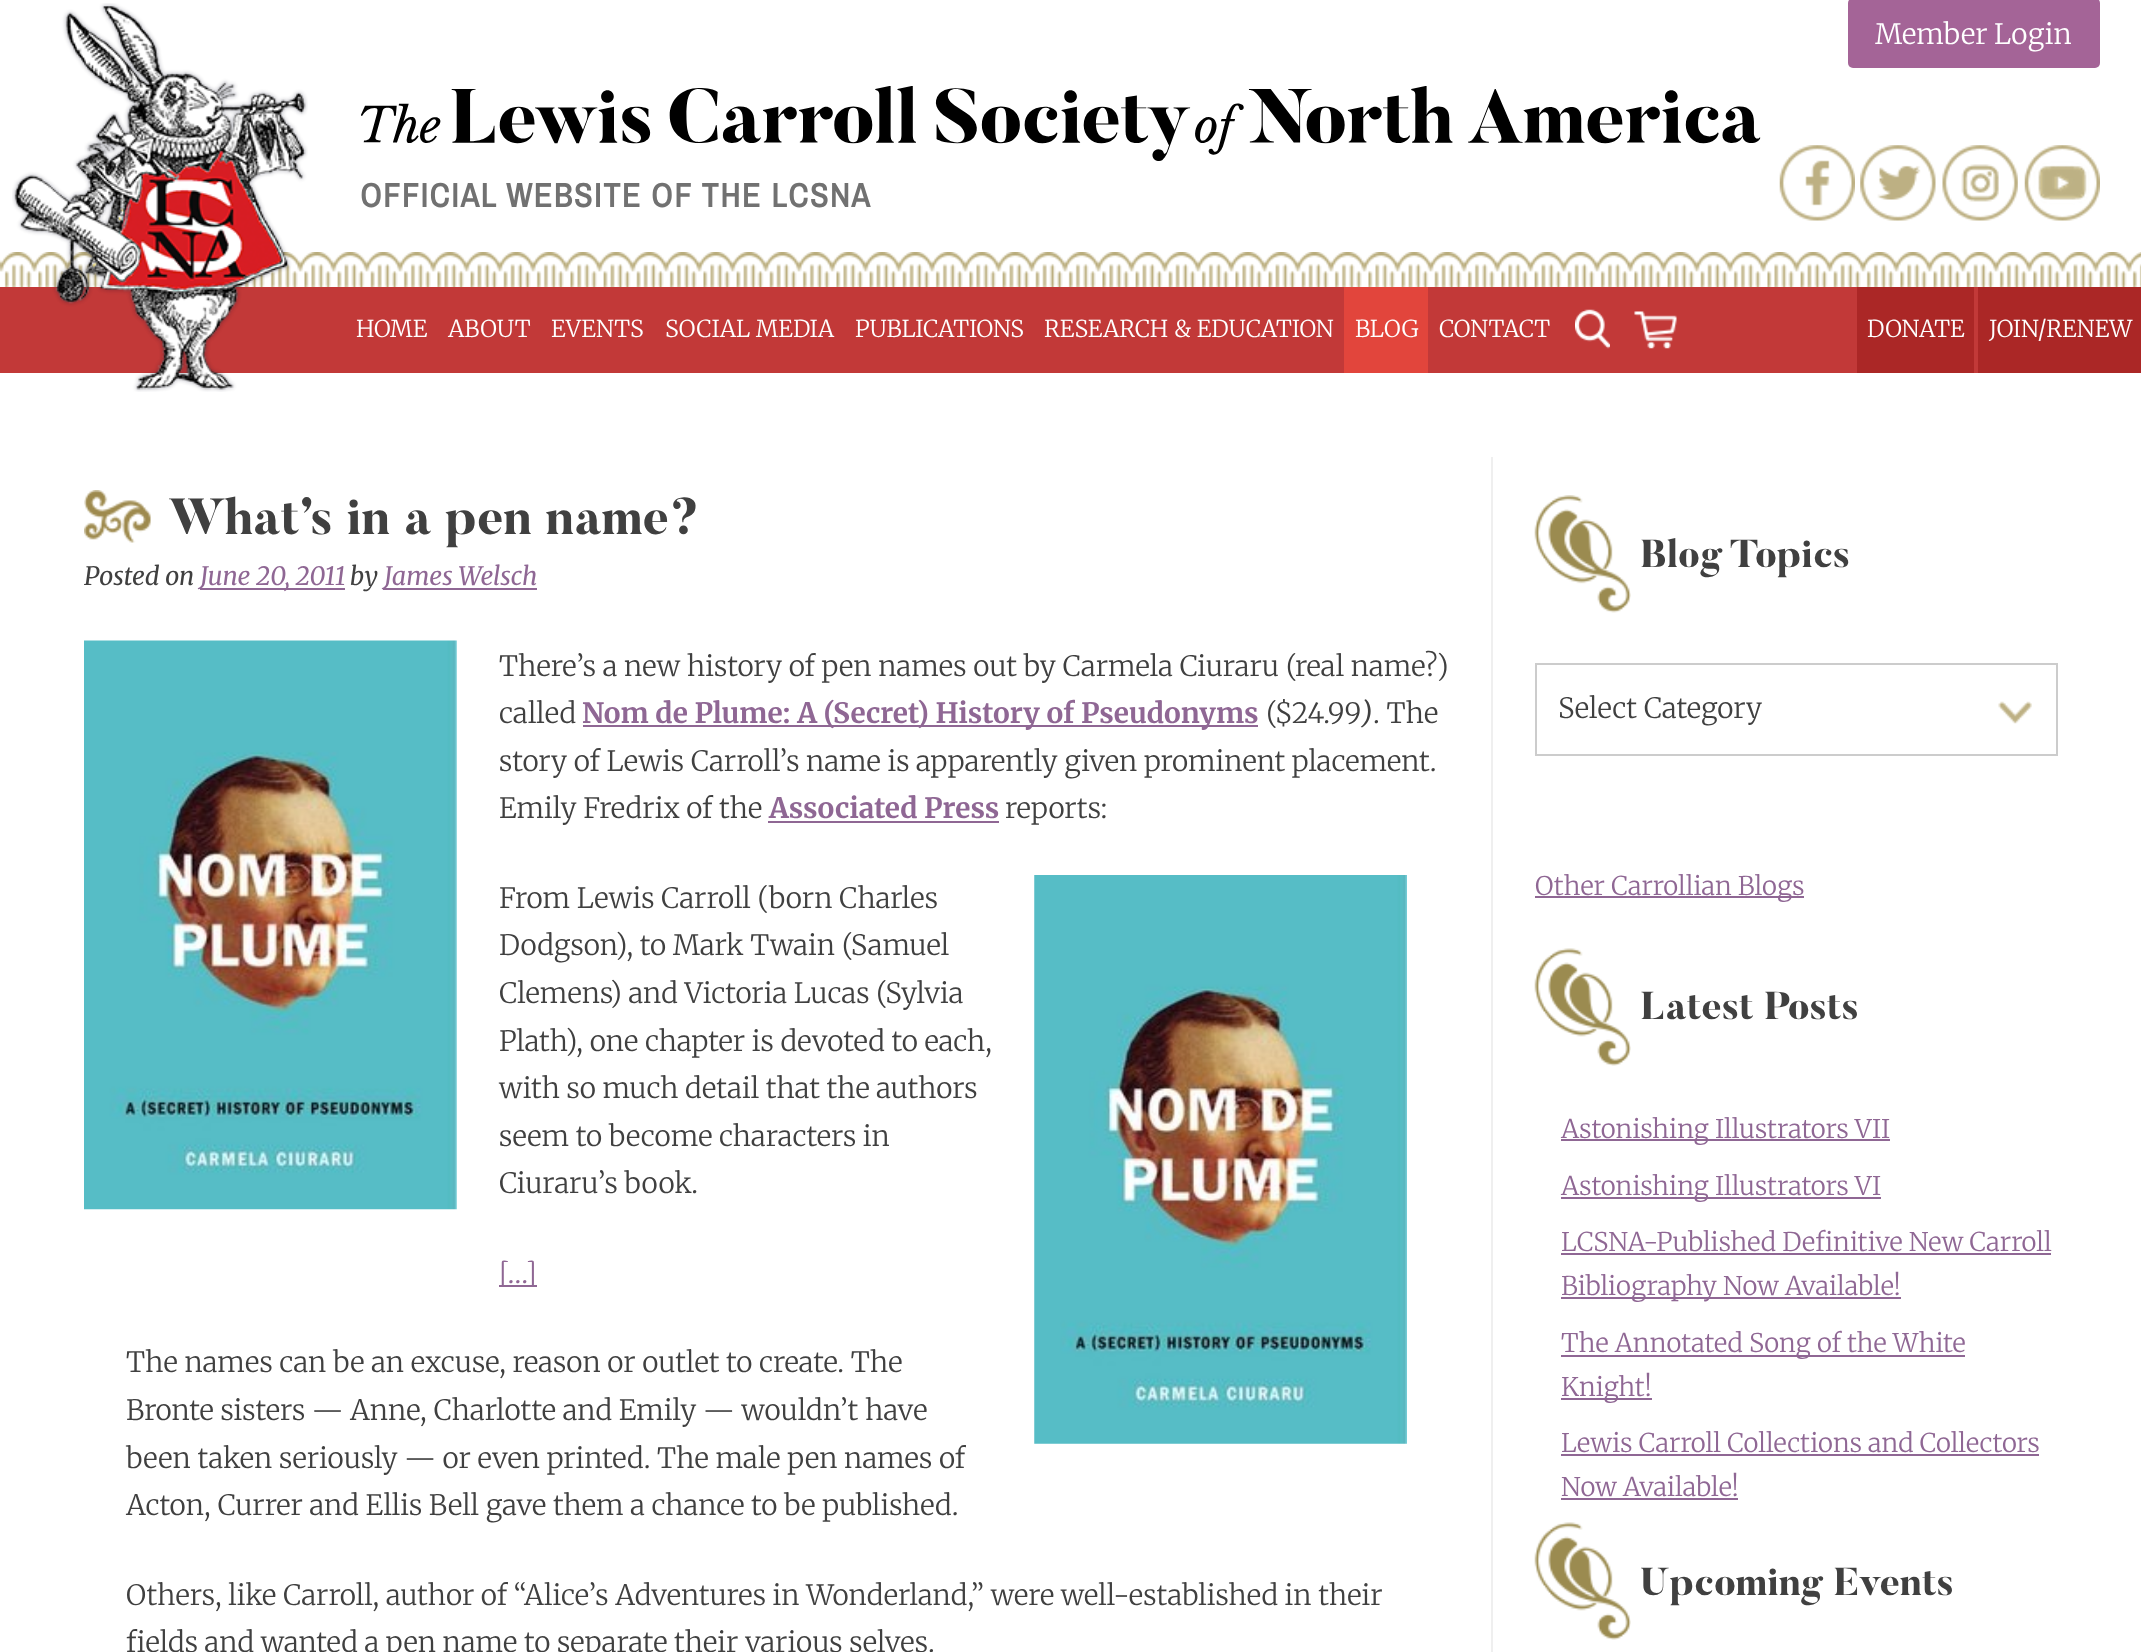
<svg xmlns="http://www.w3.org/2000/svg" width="2141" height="1652">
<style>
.a{font:300 28px Merriweather;fill:#fff}
.b{font:bold 33.6px Archivo Narrow;letter-spacing:1.7px;fill:#717171}
.c{font:300 23.25px Merriweather;fill:#fff}
.d{font:800 50.4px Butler;fill:#404040}
.e{font:italic 300 25.25px Merriweather;fill:#404040}
.f{font:italic 300 25.25px Merriweather;fill:#8f6794}
.g{font:300 28px Merriweather;fill:#404040}
.h{font:bold 28px Merriweather;fill:#8f6794}
.i{font:italic 300 28px Merriweather;fill:#404040}
.j{font:300 28px Merriweather;fill:#8f6794}
.k{font:800 38.75px Butler;fill:#404040}
.l{font:300 25.75px Merriweather;fill:#8f6794}
</style>
<rect width="100%" height="100%" fill="#fff"/>
<path fill="#c23938" d="M0 287h1857v86H0z"/>
<image href="7.png" x="0" y="252" width="2141" height="35"/>
<image href="1.png" x="12" y="3" width="296" height="389"/>
<rect fill="#a46497" x="1848" y="-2" width="252" height="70" rx="5"/>
<image href="2.png" x="361" y="86" width="1400" height="75"/>
<image href="3.png" x="1779" y="145" width="76" height="76"/>
<image href="4.png" x="1860" y="145" width="76" height="76"/>
<image href="5.png" x="1942" y="145" width="76" height="76"/>
<image href="6.png" x="2024" y="145" width="76" height="76"/>
<path fill="#e2453c" d="M1344 287h84v86H1344z"/>
<image href="8.png" x="1575" y="309" width="35" height="40"/>
<image href="9.png" x="1634" y="311" width="43" height="38"/>
<path fill="#ab2726" d="M1857 287h117v86H1857z"/>
<path fill="#ab2726" d="M1978 287h163v86H1978z"/>
<path fill="#c23938" d="M1974 287h4v86H1974z"/>
<image href="10.png" x="84" y="490" width="67" height="53"/>
<path fill="#8f6794" d="M200 588h145v2H200z"/>
<path fill="#8f6794" d="M383 588h154v2H383z"/>
<image href="11.png" x="84" y="640" width="373" height="570"/>
<path fill="#8f6794" d="M583 725h675v2H583z"/>
<path fill="#8f6794" d="M768 821h231v2H768z"/>
<image href="12.png" x="1034" y="875" width="373" height="569"/>
<path fill="#8f6794" d="M499 1285h38v2H499z"/>
<path fill="#efefef" d="M1491 457h2v1195H1491z"/>
<image href="13.png" x="1534" y="495" width="97" height="118"/>
<image href="14.png" x="1998" y="701" width="34" height="23"/>
<path fill="none" stroke="#ccc" stroke-width="2" d="M1536 664h521v91H1536z"/>
<path fill="#8f6794" d="M1535 896h269v2H1535z"/>
<image href="15.png" x="1534" y="948" width="97" height="118"/>
<path fill="#8f6794" d="M1561 1139h329v2H1561z"/>
<path fill="#8f6794" d="M1561 1197h320v2H1561z"/>
<path fill="#8f6794" d="M1561 1253h490v2H1561z"/>
<path fill="#8f6794" d="M1561 1297h340v2H1561z"/>
<path fill="#8f6794" d="M1561 1355h404v2H1561z"/>
<path fill="#8f6794" d="M1561 1398h91v2H1561z"/>
<path fill="#8f6794" d="M1561 1454h478v2H1561z"/>
<path fill="#8f6794" d="M1561 1498h177v2H1561z"/>
<image href="15.png" x="1534" y="1522" width="97" height="118"/>
<text class="a" x="1875" y="44">Member Login</text>
<text class="b" x="360" y="207">OFFICIAL WEBSITE OF THE LCSNA</text>
<text class="c" x="356" y="337">HOME</text>
<text class="c" x="448" y="337">ABOUT</text>
<text class="c" x="551" y="337">EVENTS</text>
<text class="c" x="665" y="337">SOCIAL MEDIA</text>
<text class="c" x="855" y="337">PUBLICATIONS</text>
<text class="c" x="1044" y="337">RESEARCH &amp; EDUCATION</text>
<text class="c" x="1355" y="337">BLOG</text>
<text class="c" x="1439" y="337">CONTACT</text>
<text class="c" x="1867" y="337">DONATE</text>
<text class="c" x="1989" y="337">JOIN/RENEW</text>
<text class="d" x="168" y="534">What’s in a pen name?</text>
<text class="e" x="84" y="585">Posted on</text>
<text class="f" x="200" y="585">June 20, 2011</text>
<text class="e" x="350" y="585">by</text>
<text class="f" x="384" y="585">James Welsch</text>
<text class="g" x="499" y="676">There’s a new history of pen names out by Carmela Ciuraru (real name?)</text>
<text class="g" x="499" y="723">called</text>
<text class="h" x="582" y="723">Nom de Plume: A (Secret) History of Pseudonyms</text>
<text class="g" x="1266" y="723">($24.99</text>
<text class="i" x="1361" y="723">)</text>
<text class="g" x="1373" y="723">. The</text>
<text class="g" x="499" y="771">story of Lewis Carroll’s name is apparently given prominent placement.</text>
<text class="g" x="499" y="818">Emily Fredrix of the</text>
<text class="h" x="769" y="818">Associated Press</text>
<text class="g" x="1005" y="818">reports:</text>
<text class="g" x="499" y="908">From Lewis Carroll (born Charles</text>
<text class="g" x="499" y="955">Dodgson), to Mark Twain (Samuel</text>
<text class="g" x="499" y="1003">Clemens) and Victoria Lucas (Sylvia</text>
<text class="g" x="499" y="1051">Plath), one chapter is devoted to each,</text>
<text class="g" x="499" y="1098">with so much detail that the authors</text>
<text class="g" x="499" y="1146">seem to become characters in</text>
<text class="g" x="499" y="1193">Ciuraru’s book.</text>
<text class="j" x="499" y="1283">[…]</text>
<text class="g" x="126" y="1372">The names can be an excuse, reason or outlet to create. The</text>
<text class="g" x="126" y="1420">Bronte sisters — Anne, Charlotte and Emily — wouldn’t have</text>
<text class="g" x="126" y="1468">been taken seriously — or even printed. The male pen names of</text>
<text class="g" x="126" y="1515">Acton, Currer and Ellis Bell gave them a chance to be published.</text>
<text class="g" x="126" y="1605">Others, like Carroll, author of “Alice’s Adventures in Wonderland,” were well-established in their</text>
<text class="g" x="126" y="1652">fields and wanted a pen name to separate their various selves.</text>
<text class="k" x="1640" y="567">Blog Topics</text>
<text class="g" x="1558" y="718">Select Category</text>
<text class="l" x="1535" y="895">Other Carrollian Blogs</text>
<text class="k" x="1640" y="1019">Latest Posts</text>
<text class="l" x="1561" y="1138">Astonishing Illustrators VII</text>
<text class="l" x="1561" y="1195">Astonishing Illustrators VI</text>
<text class="l" x="1561" y="1251">LCSNA-Published Definitive New Carroll</text>
<text class="l" x="1561" y="1295">Bibliography Now Available!</text>
<text class="l" x="1561" y="1352">The Annotated Song of the White</text>
<text class="l" x="1561" y="1396">Knight!</text>
<text class="l" x="1561" y="1452">Lewis Carroll Collections and Collectors</text>
<text class="l" x="1561" y="1496">Now Available!</text>
<text class="k" x="1640" y="1595">Upcoming Events</text>
</svg>
